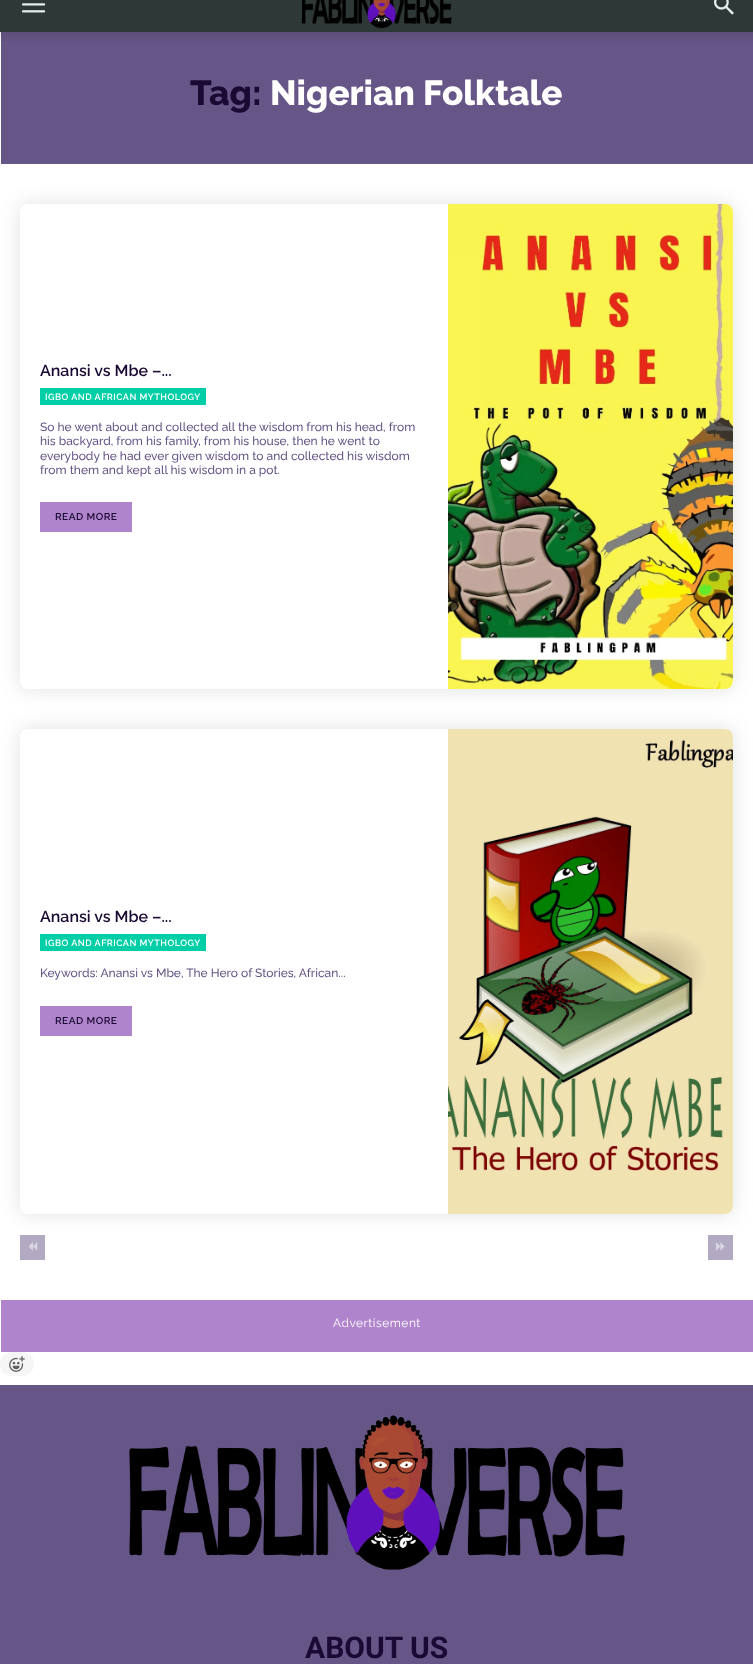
<svg xmlns="http://www.w3.org/2000/svg" width="753" height="1664">
<style>
.a{font:800 35px Raleway;fill:#190933}
.b{font:800 35px Raleway;fill:#fff}
.c{font:600 16px Raleway;fill:#190933}
.d{font:600 9px Raleway;letter-spacing:0.5px;fill:#fff}
.e{font:500 12px Raleway;fill:#665687}
.f{font:600 10px Raleway;letter-spacing:0.5px;fill:#190933}
.g{font:12px Raleway;letter-spacing:0.5px;fill:#fff}
.h{font:bold 30px Roboto;fill:#190933}
</style>
<rect width="100%" height="100%" fill="#fff"/>
<path fill="#2e3837" d="M0 0h753v32H0z"/>
<image href="1.png" x="22" y="3" width="24" height="10"/>
<image href="2.png" x="301" y="0" width="151" height="29"/>
<image href="3.png" x="714" y="0" width="20" height="15"/>
<path fill="#665687" d="M1 32h752v132H1z"/>
<image href="4.png" x="0" y="32" width="753" height="9"/>
<rect fill="#2e383726" filter="blur(10px)" x="20" y="204" width="713" height="485" rx="8"/>
<rect fill="#fff" x="20" y="204" width="713" height="485" rx="8"/>
<path fill="#00cea6" d="M40 388h166v17H40z"/>
<path fill="#b084cc" d="M40 502h92v30H40z"/>
<image href="5.png" x="448" y="204" width="285" height="485"/>
<rect fill="#2e383726" filter="blur(10px)" x="20" y="729" width="713" height="485" rx="8"/>
<rect fill="#fff" x="20" y="729" width="713" height="485" rx="8"/>
<path fill="#00cea6" d="M40 934h166v17H40z"/>
<path fill="#b084cc" d="M40 1006h92v30H40z"/>
<image href="6.png" x="448" y="729" width="285" height="485"/>
<path fill="#b2aac3" d="M20 1235h25v25H20z"/>
<image href="7.png" x="28" y="1242" width="10" height="9"/>
<path fill="#b2aac3" d="M708 1235h25v25H708z"/>
<image href="8.png" x="716" y="1242" width="9" height="9"/>
<path fill="#b084cc" d="M1 1300h752v52H1z"/>
<rect fill="#f6f6f6" y="1352" width="34" height="24" rx="12"/>
<image href="9.png" x="9" y="1356" width="16" height="16"/>
<path fill="#665687" d="M0 1385h753v279H0z"/>
<image href="10.png" x="129" y="1415" width="496" height="155"/>
<text class="a" x="190" y="105">Tag:</text>
<text class="b" x="270" y="105">Nigerian Folktale</text>
<text class="c" x="40" y="376">Anansi vs Mbe –...</text>
<text class="d" x="45" y="400">IGBO AND AFRICAN MYTHOLOGY</text>
<text class="e" x="40" y="431">So he went about and collected all the wisdom from his head, from</text>
<text class="e" x="40" y="445">his backyard, from his family, from his house, then he went to</text>
<text class="e" x="40" y="460">everybody he had ever given wisdom to and collected his wisdom</text>
<text class="e" x="40" y="474">from them and kept all his wisdom in a pot.</text>
<text class="f" x="55" y="520">READ MORE</text>
<text class="c" x="40" y="922">Anansi vs Mbe –...</text>
<text class="d" x="45" y="946">IGBO AND AFRICAN MYTHOLOGY</text>
<text class="e" x="40" y="977">Keywords: Anansi vs Mbe, The Hero of Stories, African...</text>
<text class="f" x="55" y="1024">READ MORE</text>
<text class="g" x="333" y="1327">Advertisement</text>
<text class="h" x="305" y="1658">ABOUT US</text>
</svg>
